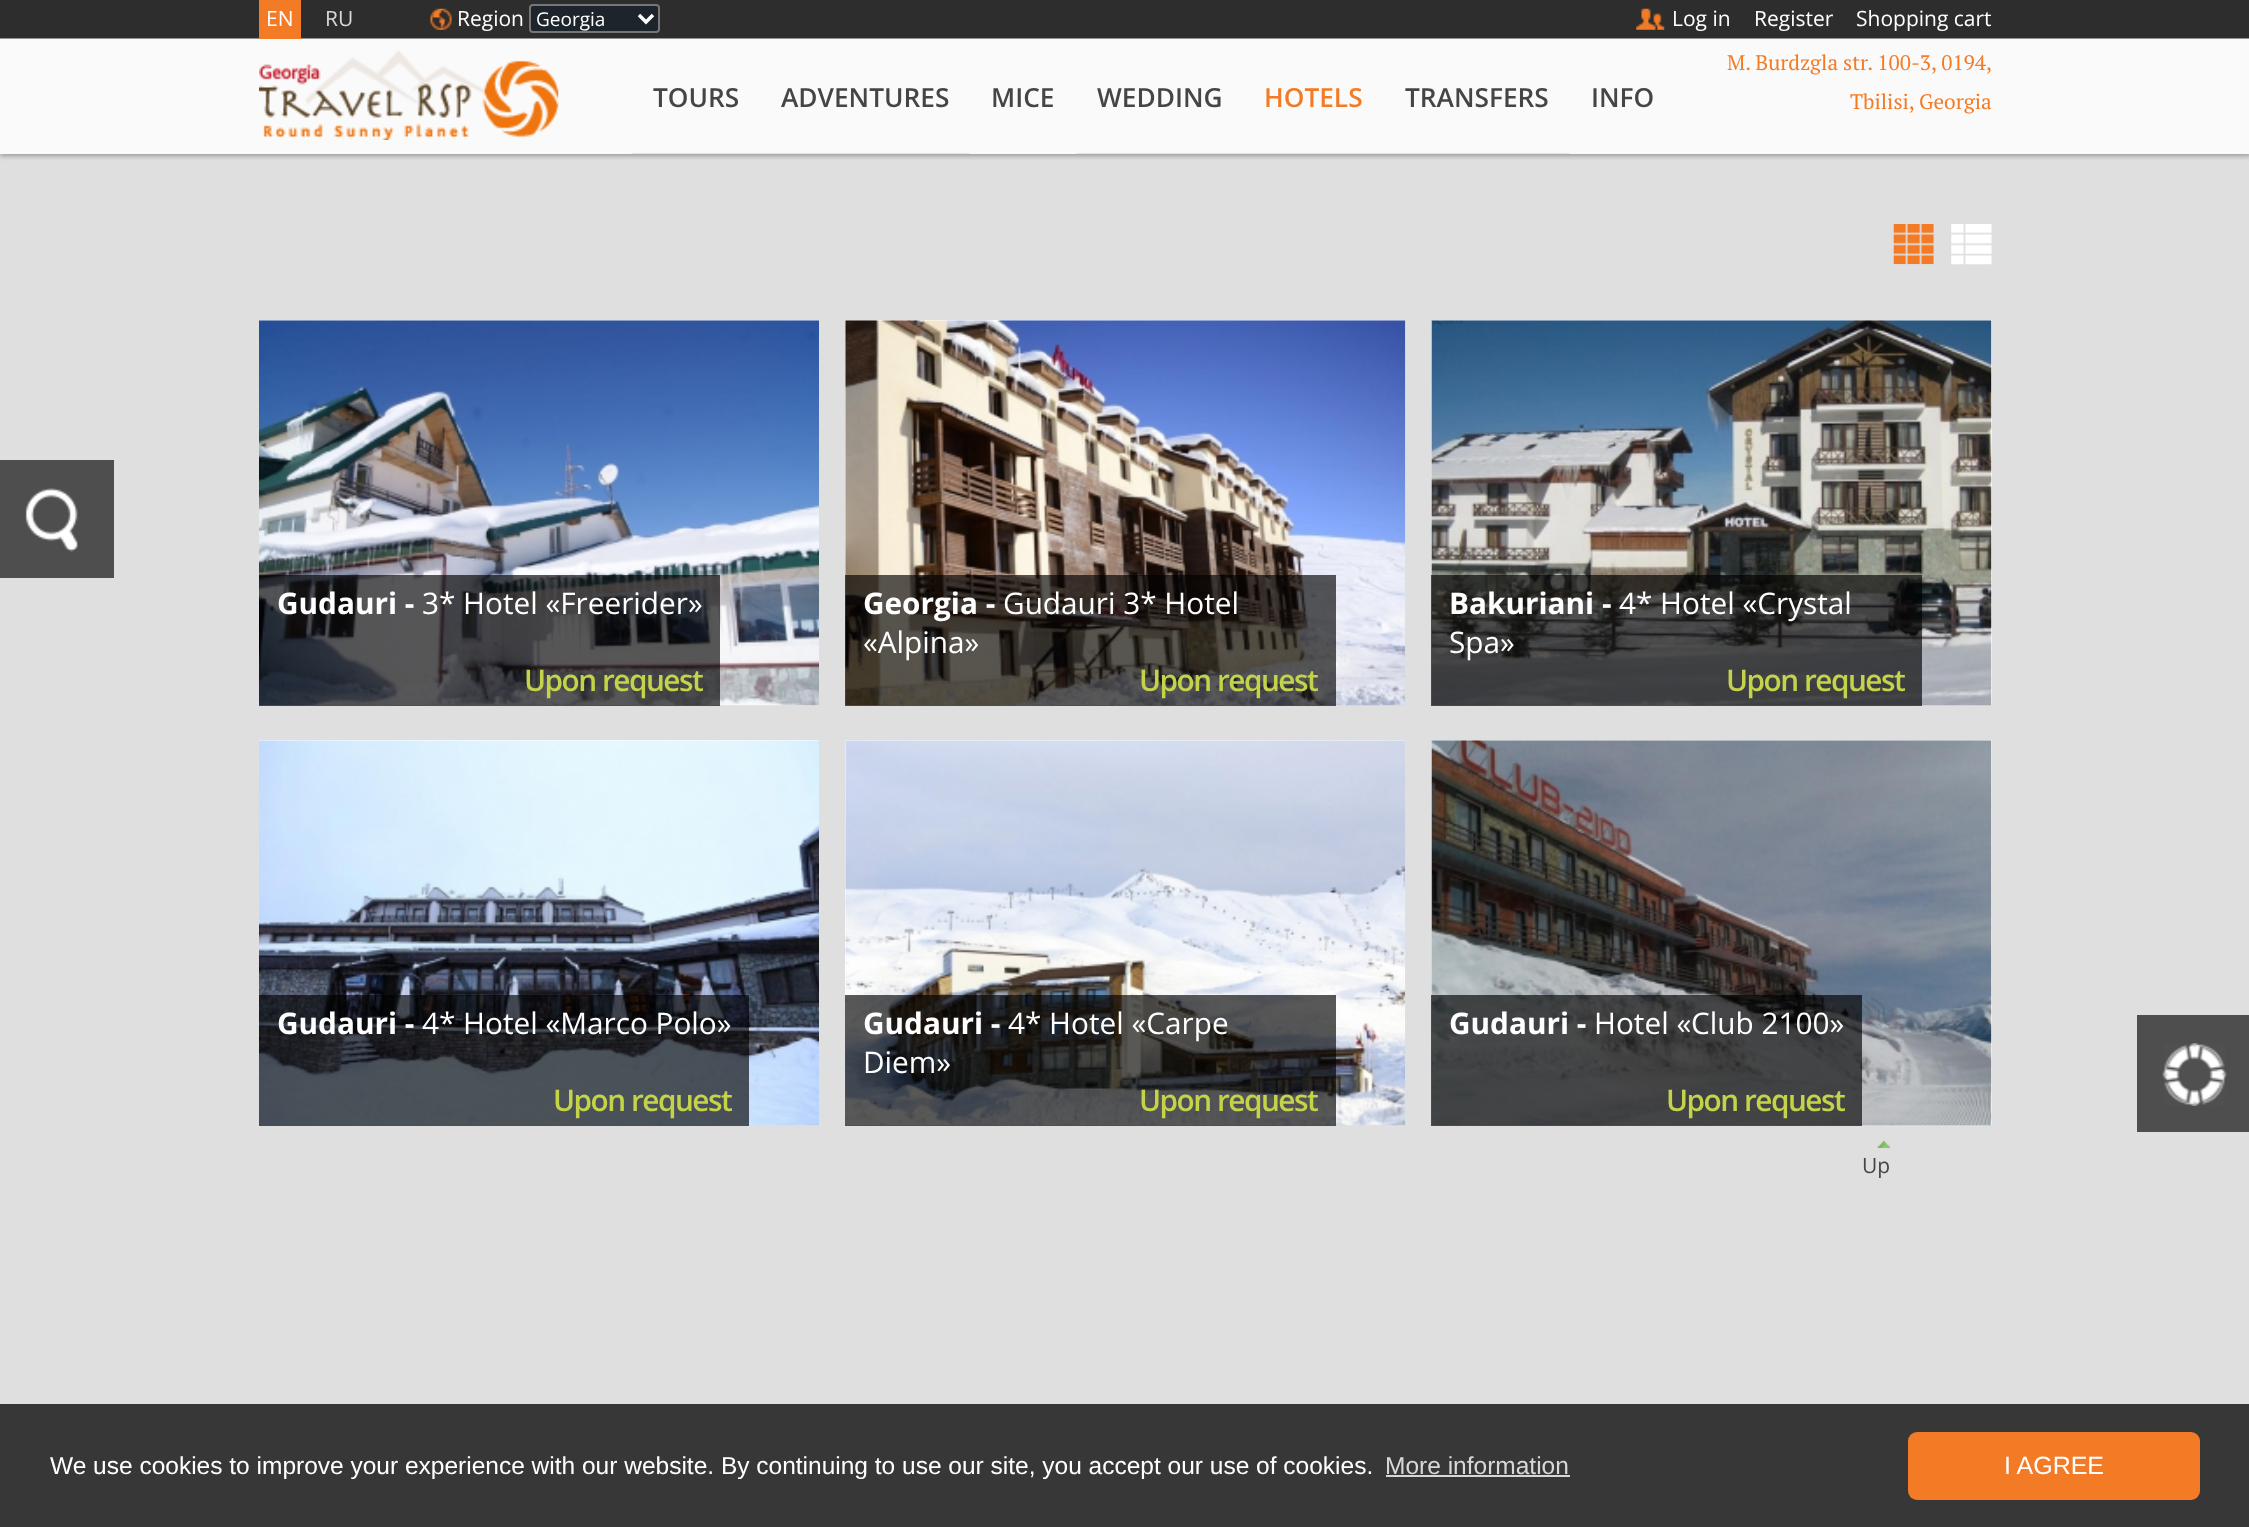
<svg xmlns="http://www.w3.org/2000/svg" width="2249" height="1527">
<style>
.a{font:21px Open Sans;fill:#fff}
.b{font:21px Open Sans;fill:#d8d8d8}
.c{font:19px Open Sans;fill:#fff}
.d{font:600 26.25px Open Sans;fill:#454544}
.e{font:600 26.25px Open Sans;fill:#f47b26}
.f{font:21px PT Serif;fill:#f47b26}
.g{font:bold 29.75px Open Sans;fill:#fff}
.h{font:29.75px Open Sans;fill:#fff}
.i{font:600 29.75px Open Sans;letter-spacing:-1.5px;fill:#c4d349}
.j{font:21px Open Sans;fill:#454544}
.k{font:24.5px Liberation Sans;fill:#fff}
.l{font:24.5px Liberation Sans;fill:#d8d8d8}
.m{font:25px Liberation Sans;fill:#fff}
</style>
<defs>
<clipPath id="clip1"><path d="M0 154h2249v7H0z"/></clipPath>
</defs>
<rect width="100%" height="100%" fill="#dfdfdf"/>
<g clip-path="url(#clip1)">
<path fill="#999" filter="blur(2.5px)" d="M0 2h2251v154H0z"/>
</g>
<image href="1.png" x="0" y="0" width="2249" height="154"/>
<path fill="#f47b26" d="M259 0h42v39H259z"/>
<image href="2.png" x="430" y="8" width="22" height="22"/>
<rect fill="#1e242b" stroke="#767676" stroke-width="2" x="530" y="5" width="129" height="27" rx="3"/>
<path fill="none" stroke="#fff" stroke-width="3.5" d="M639 15l7 7l7-7"/>
<image href="3.png" x="1636" y="8" width="29" height="22"/>
<image href="4.png" x="259" y="50" width="300" height="90"/>
<image href="5.png" x="631" y="153" width="129" height="1"/>
<image href="6.png" x="759" y="153" width="211" height="1"/>
<image href="7.png" x="1076" y="153" width="167" height="1"/>
<image href="8.png" x="1242" y="153" width="143" height="1"/>
<image href="9.png" x="1384" y="153" width="186" height="1"/>
<path fill="#4e4e4e" d="M0 460h114v118H0z"/>
<image href="10.png" x="25" y="488" width="53" height="64"/>
<image href="11.png" x="1893" y="224" width="41" height="41"/>
<image href="12.png" x="1951" y="224" width="41" height="41"/>
<path fill="#fff" d="M259 320h560v1H259z"/>
<image href="13.png" x="259" y="320" width="560" height="386"/>
<path fill="#000000a6" d="M259 575h461v131H259z"/>
<path fill="#fff" d="M845 320h560v385H845z"/>
<image href="14.png" x="845" y="320" width="561" height="386"/>
<path fill="#000000a6" d="M845 575h491v131H845z"/>
<path fill="#fff" d="M1432 320h560v385H1432z"/>
<image href="15.png" x="1431" y="320" width="561" height="386"/>
<path fill="#000000a6" d="M1431 575h491v131H1431z"/>
<path fill="#fff" d="M259 740h560v1H259z"/>
<image href="16.png" x="259" y="740" width="560" height="386"/>
<path fill="#000000a6" d="M259 995h490v131H259z"/>
<path fill="#fff" d="M845 740h560v385H845z"/>
<image href="17.png" x="845" y="740" width="561" height="386"/>
<path fill="#000000a6" d="M845 995h491v131H845z"/>
<path fill="#fff" d="M1432 740h560v385H1432z"/>
<image href="18.png" x="1431" y="740" width="561" height="386"/>
<path fill="#000000a6" d="M1431 995h431v131H1431z"/>
<image href="19.png" x="1877" y="1141" width="13" height="7"/>
<path fill="#4e4e4e" d="M2137 1015h112v117H2137z"/>
<image href="20.png" x="2162" y="1043" width="65" height="63"/>
<path fill="#373737" d="M0 1404h2249v123H0z"/>
<path fill="#d7d7d7" d="M1386 1475h184v2H1386z"/>
<rect fill="#f47b26" x="1908" y="1432" width="292" height="68" rx="9"/>
<text class="a" x="266" y="26">EN</text>
<text class="b" x="325" y="26">RU</text>
<text class="a" x="457" y="26">Region</text>
<text class="c" x="536" y="26">Georgia</text>
<text class="a" x="1672" y="26">Log in</text>
<text class="a" x="1754" y="26">Register</text>
<text class="a" x="1856" y="26">Shopping cart</text>
<text class="d" x="653" y="107">TOURS</text>
<text class="d" x="781" y="107">ADVENTURES</text>
<text class="d" x="991" y="107">MICE</text>
<text class="d" x="1097" y="107">WEDDING</text>
<text class="e" x="1264" y="107">HOTELS</text>
<text class="d" x="1405" y="107">TRANSFERS</text>
<text class="d" x="1591" y="107">INFO</text>
<text class="f" x="1727" y="70">M. Burdzgla str. 100-3, 0194,</text>
<text class="f" x="1850" y="109">Tbilisi, Georgia</text>
<text class="g" x="277" y="614">Gudauri -</text>
<text class="h" x="422" y="614">3* Hotel «Freerider»</text>
<text class="i" x="524" y="691">Upon request</text>
<text class="g" x="863" y="614">Georgia -</text>
<text class="h" x="1003" y="614">Gudauri 3* Hotel</text>
<text class="h" x="863" y="653">«Alpina»</text>
<text class="i" x="1139" y="691">Upon request</text>
<text class="g" x="1449" y="614">Bakuriani -</text>
<text class="h" x="1619" y="614">4* Hotel «Crystal</text>
<text class="h" x="1449" y="653">Spa»</text>
<text class="i" x="1726" y="691">Upon request</text>
<text class="g" x="277" y="1034">Gudauri -</text>
<text class="h" x="422" y="1034">4* Hotel «Marco Polo»</text>
<text class="i" x="553" y="1111">Upon request</text>
<text class="g" x="863" y="1034">Gudauri -</text>
<text class="h" x="1008" y="1034">4* Hotel «Carpe</text>
<text class="h" x="863" y="1073">Diem»</text>
<text class="i" x="1139" y="1111">Upon request</text>
<text class="g" x="1449" y="1034">Gudauri -</text>
<text class="h" x="1594" y="1034">Hotel «Club 2100»</text>
<text class="i" x="1666" y="1111">Upon request</text>
<text class="j" x="1862" y="1173">Up</text>
<text class="k" x="50" y="1474">We use cookies to improve your experience with our website. By continuing to use our site, you accept our use of cookies.</text>
<text class="l" x="1385" y="1474">More information</text>
<text class="m" x="2004" y="1474">I AGREE</text>
</svg>
